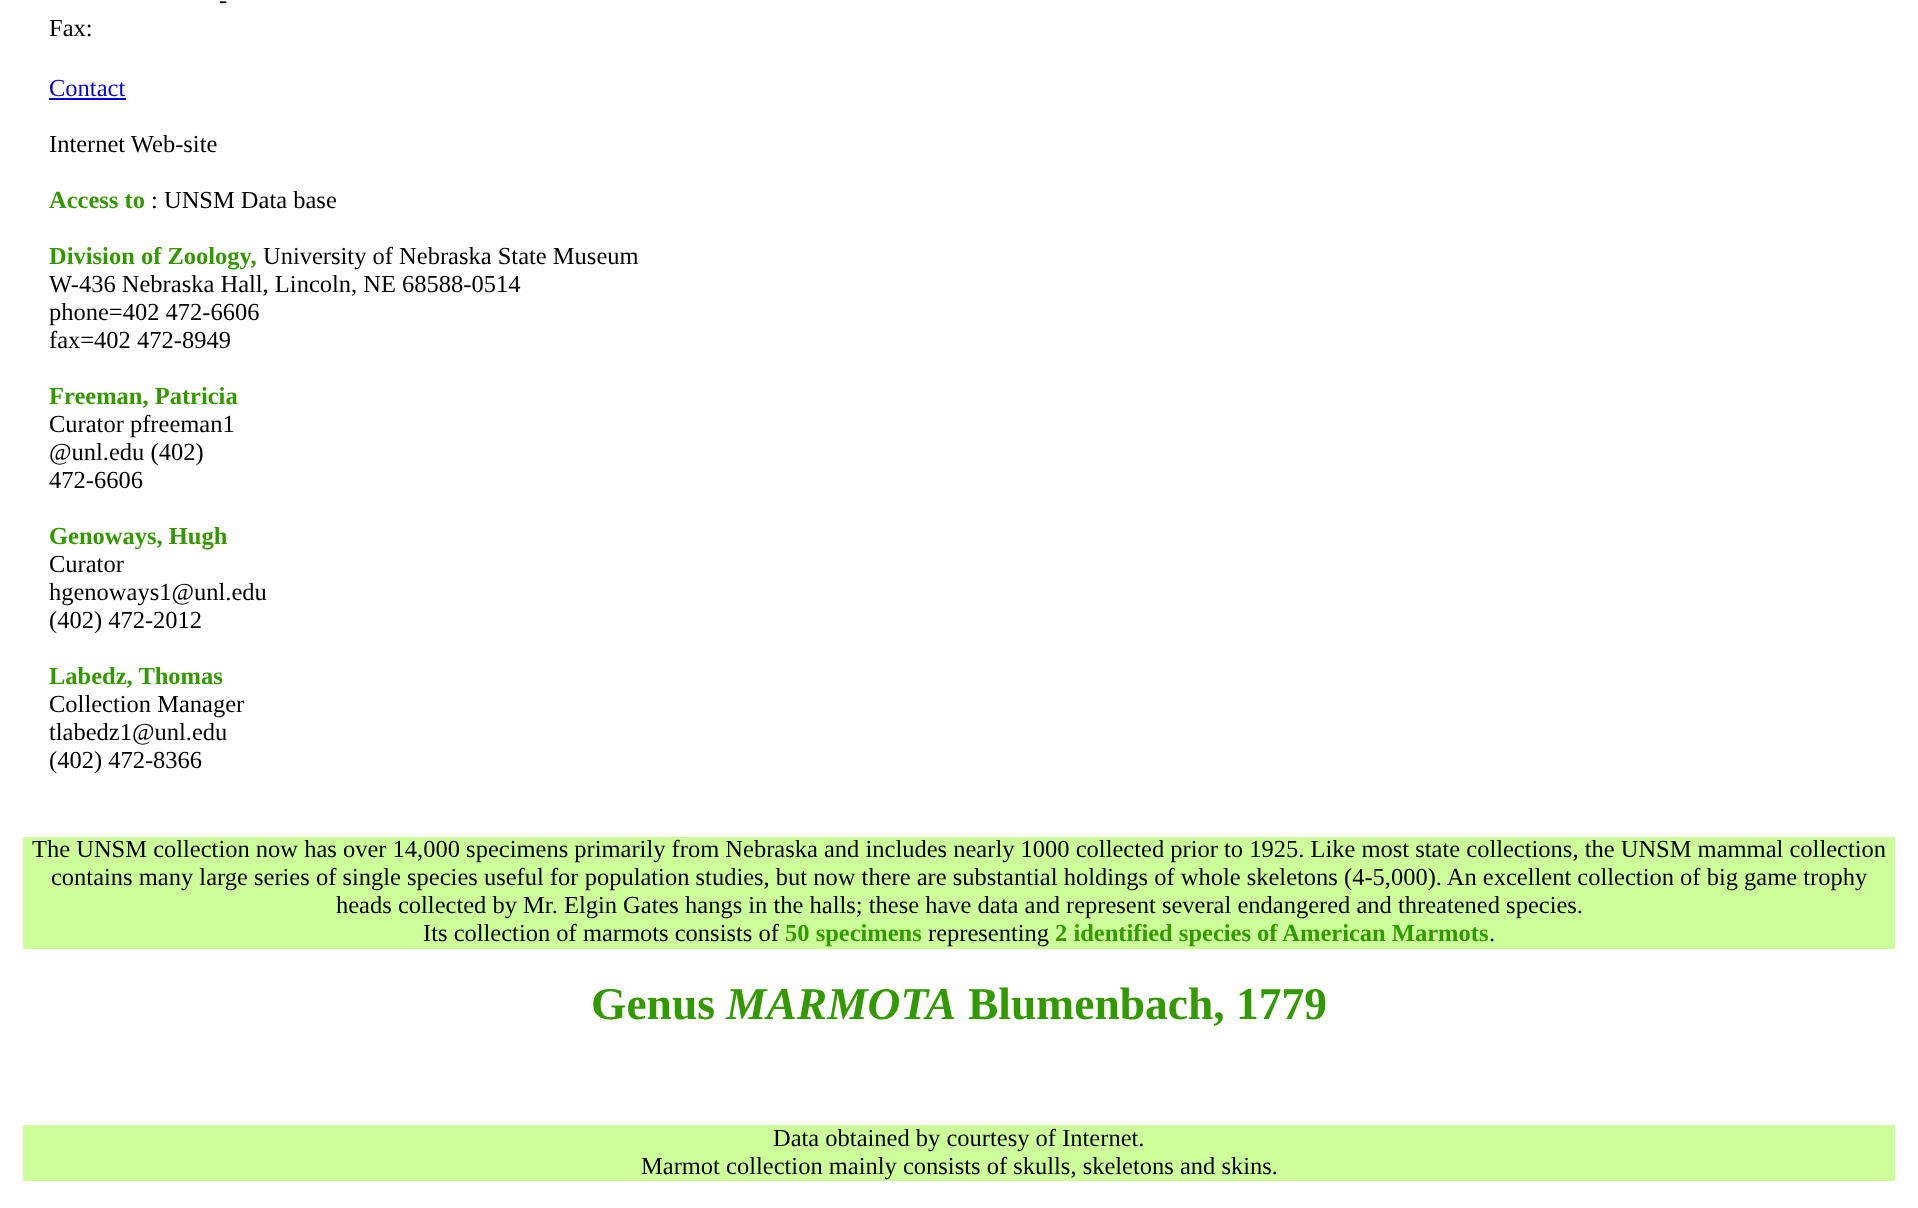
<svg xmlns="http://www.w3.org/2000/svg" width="1918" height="1208">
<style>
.a{font:24.5px Liberation Serif;fill:#000}
.b{font:24.5px Liberation Serif;fill:#00e}
.c{font:bold 24.5px Liberation Serif;fill:#390}
.d{font:bold 45.5px Liberation Serif;fill:#390}
.e{font:italic bold 45.5px Liberation Serif;fill:#390}
</style>
<rect width="100%" height="100%" fill="#fff"/>
<path fill="#00e" d="M49 98h77v2H49z"/>
<path fill="#cf9" d="M23 837h1872v112H23z"/>
<path fill="#cf9" d="M23 1125h1872v56H23z"/>
<text class="a" x="219" y="8">-</text>
<text class="a" x="49" y="36">Fax:</text>
<text class="b" x="49" y="96">Contact</text>
<text class="a" x="49" y="152">Internet Web-site</text>
<text class="c" x="49" y="208">Access to</text>
<text class="a" x="151" y="208">: UNSM Data base</text>
<text class="c" x="49" y="264">Division of Zoology,</text>
<text class="a" x="263" y="264">University of Nebraska State Museum</text>
<text class="a" x="49" y="292">W-436 Nebraska Hall, Lincoln, NE 68588-0514</text>
<text class="a" x="49" y="320">phone=402 472-6606</text>
<text class="a" x="49" y="348">fax=402 472-8949</text>
<text class="c" x="49" y="404">Freeman, Patricia</text>
<text class="a" x="49" y="432">Curator pfreeman1</text>
<text class="a" x="49" y="460">@unl.edu (402)</text>
<text class="a" x="49" y="488">472-6606</text>
<text class="c" x="49" y="544">Genoways, Hugh</text>
<text class="a" x="49" y="572">Curator</text>
<text class="a" x="49" y="600">hgenoways1@unl.edu</text>
<text class="a" x="49" y="628">(402) 472-2012</text>
<text class="c" x="49" y="684">Labedz, Thomas</text>
<text class="a" x="49" y="712">Collection Manager</text>
<text class="a" x="49" y="740">tlabedz1@unl.edu</text>
<text class="a" x="49" y="768">(402) 472-8366</text>
<text class="a" x="32" y="857">The UNSM collection now has over 14,000 specimens primarily from Nebraska and includes nearly 1000 collected prior to 1925. Like most state collections, the UNSM mammal collection</text>
<text class="a" x="51" y="885">contains many large series of single species useful for population studies, but now there are substantial holdings of whole skeletons (4-5,000). An excellent collection of big game trophy</text>
<text class="a" x="336" y="913">heads collected by Mr. Elgin Gates hangs in the halls; these have data and represent several endangered and threatened species.</text>
<text class="a" x="423" y="941">Its collection of marmots consists of</text>
<text class="c" x="785" y="941">50 specimens</text>
<text class="a" x="928" y="941">representing</text>
<text class="c" x="1055" y="941">2 identified species of American Marmots</text>
<text class="a" x="1489" y="941">.</text>
<text class="d" x="591" y="1019">Genus</text>
<text class="e" x="726" y="1019">MARMOTA</text>
<text class="d" x="968" y="1019">Blumenbach, 1779</text>
<text class="a" x="773" y="1146">Data obtained by courtesy of Internet.</text>
<text class="a" x="641" y="1174">Marmot collection mainly consists of skulls, skeletons and skins.</text>
</svg>
